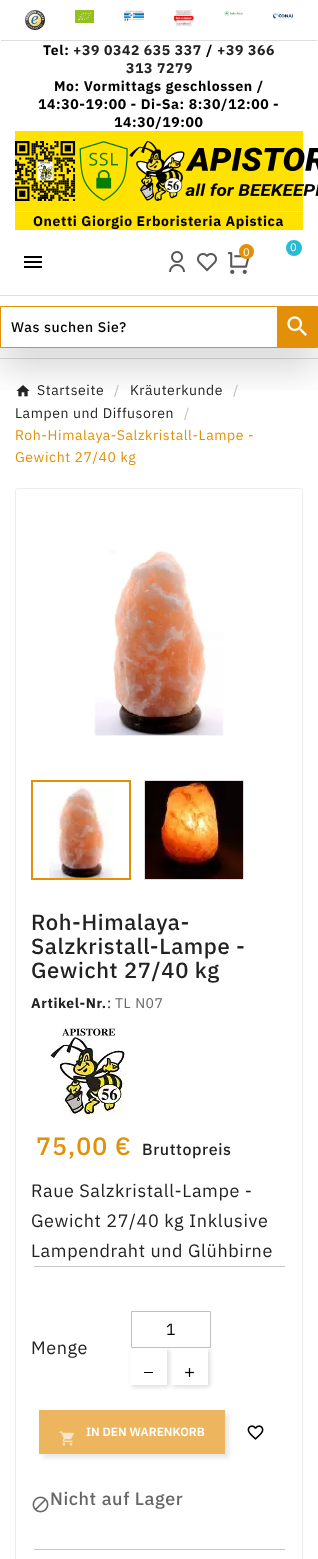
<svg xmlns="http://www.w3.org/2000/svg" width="318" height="1559">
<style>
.a{font:bold 14px IBM Plex Sans;letter-spacing:0.6px;fill:#000}
.b{font:bold 14px IBM Plex Sans;letter-spacing:0.6px;fill:#222}
.c{font:11px IBM Plex Sans;letter-spacing:0.6px;fill:#fff}
.d{font:500 14px IBM Plex Sans;letter-spacing:0.6px;fill:#000}
.e{font:14px IBM Plex Sans;letter-spacing:0.6px;fill:#222}
.f{font:14px IBM Plex Sans;letter-spacing:0.6px;fill:#bdbdbd}
.g{font:14px IBM Plex Sans;letter-spacing:0.6px;fill:#e38f08}
.h{font:500 22px IBM Plex Sans;letter-spacing:0.6px;fill:#222}
.i{font:14px IBM Plex Sans;letter-spacing:0.6px;fill:#666}
.j{font:500 25px IBM Plex Sans;letter-spacing:1px;fill:#e38f08}
.k{font:500 16px IBM Plex Sans;letter-spacing:0.6px;fill:#222}
.l{font:18px IBM Plex Sans;letter-spacing:0.6px;fill:#222}
.m{font:16px IBM Plex Sans;fill:#000}
.n{font:600 12px IBM Plex Sans;fill:#fff}
.o{font:500 18px IBM Plex Sans;letter-spacing:0.6px;fill:#666}
</style>
<defs>
<clipPath id="clip1"><path d="M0 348h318v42H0z"/></clipPath>
<clipPath id="clip2"><path d="M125 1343h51v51h-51zm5 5h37v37h-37z" clip-rule="evenodd"/></clipPath>
<clipPath id="clip3"><path d="M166 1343h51v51h-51zm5 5h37v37h-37z" clip-rule="evenodd"/></clipPath>
</defs>
<rect width="100%" height="100%" fill="#fff"/>
<path fill="#ddd" d="M1 40h316v1H1z"/>
<image href="1.png" x="25" y="10" width="20" height="20"/>
<image href="2.png" x="75" y="10" width="19" height="13"/>
<image href="3.png" x="124" y="10" width="20" height="11"/>
<image href="4.png" x="174" y="10" width="20" height="17"/>
<image href="5.png" x="224" y="10" width="19" height="7"/>
<image href="6.png" x="273" y="13" width="20" height="6"/>
<path fill="#ddd" d="M0 295h318v1H0z"/>
<path fill="#ffe200" d="M15 131h288v99H15z"/>
<path fill="#ddd" d="M15 211h288v1H15z"/>
<image href="7.png" x="15" y="141" width="303" height="60"/>
<image href="8.png" x="169" y="251" width="16" height="21"/>
<image href="9.png" x="197" y="253" width="20" height="19"/>
<image href="10.png" x="228" y="252" width="22" height="22"/>
<circle fill="#e38f08" cx="246.5" cy="251.5" r="7.5"/>
<circle fill="#29bbd4" cx="294" cy="248" r="8"/>
<image href="11.png" x="24" y="256" width="18" height="12"/>
<path fill="#ddd" d="M0 358h318v1H0z"/>
<g clip-path="url(#clip1)">
<path fill="#00000029" filter="blur(18px)" d="M0 327h318v42H0z"/>
</g>
<path fill="none" stroke="#e38f08" d="M0.5 306.5h317v41H0.5z"/>
<path fill="#e38f08" d="M277 307h40v40H277z"/>
<image href="12.png" x="287" y="316" width="20" height="20"/>
<image href="13.png" x="16" y="385" width="14" height="12"/>
<rect fill="none" stroke="#ededed" x="15.5" y="488.5" width="287" height="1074" rx="2.5"/>
<image href="14.png" x="94" y="550" width="130" height="187"/>
<path fill="none" stroke="#e38f08" stroke-width="2" d="M32 781h98v98H32z"/>
<image href="15.png" x="49" y="786" width="66" height="92"/>
<path fill="none" stroke="#ddd" d="M144.5 780.5h99v99H144.5z"/>
<image href="16.png" x="145" y="781" width="98" height="98"/>
<image href="17.png" x="50" y="1028" width="76" height="90"/>
<path fill="#c7c7c7" d="M34 1266h251v1H34z"/>
<path fill="#c7c7c7" d="M34 1549h251v1H34z"/>
<g clip-path="url(#clip2)">
<path fill="#00000024" filter="blur(2px)" d="M132 1350h37v37H132z"/>
</g>
<g clip-path="url(#clip3)">
<path fill="#00000024" filter="blur(2px)" d="M173 1350h37v37H173z"/>
</g>
<path fill="none" stroke="#bfbfbf" d="M131.5 1311.5h79v36H131.5z"/>
<path fill="#000" d="M144 1372h9v1H144z"/>
<image href="18.png" x="185" y="1368" width="9" height="9"/>
<path fill="#59595924" filter="blur(2px)" d="M43 1414h186v44H43z"/>
<path fill="#edb65e" d="M39 1410h186v44H39z"/>
<image href="19.png" x="59" y="1431" width="15" height="15"/>
<image href="20.png" x="247" y="1425" width="17" height="15"/>
<image href="21.png" x="32" y="1496" width="17" height="17"/>
<text class="a" x="43" y="55">Tel:</text>
<text class="b" x="73" y="55">+39 0342 635 337</text>
<text class="a" x="206" y="55">/</text>
<text class="b" x="217" y="55">+39 366</text>
<text class="b" x="126" y="73">313 7279</text>
<text class="a" x="54" y="91">Mo: Vormittags geschlossen /</text>
<text class="a" x="38" y="109">14:30-19:00 - Di-Sa: 8:30/12:00 -</text>
<text class="a" x="114" y="127">14:30/19:00</text>
<text class="a" x="33" y="226">Onetti Giorgio Erboristeria Apistica</text>
<text class="c" x="243" y="256">0</text>
<text class="c" x="290" y="251">0</text>
<text class="d" x="11" y="332">Was suchen Sie?</text>
<text class="e" x="37" y="395">Startseite</text>
<text class="f" x="114" y="395">/</text>
<text class="e" x="130" y="395">Kräuterkunde</text>
<text class="f" x="233" y="395">/</text>
<text class="e" x="15" y="418">Lampen und Diffusoren</text>
<text class="f" x="184" y="418">/</text>
<text class="g" x="15" y="440">Roh-Himalaya-Salzkristall-Lampe -</text>
<text class="g" x="15" y="462">Gewicht 27/40 kg</text>
<text class="h" x="31" y="930">Roh-Himalaya-</text>
<text class="h" x="31" y="954">Salzkristall-Lampe -</text>
<text class="h" x="31" y="978">Gewicht 27/40 kg</text>
<text class="b" x="31" y="1008">Artikel-Nr.</text>
<text class="e" x="107" y="1008">:</text>
<text class="i" x="115" y="1008">TL N07</text>
<text class="j" x="36" y="1155">75,00 €</text>
<text class="k" x="142" y="1155">Bruttopreis</text>
<text class="l" x="31" y="1197">Raue Salzkristall-Lampe -</text>
<text class="l" x="31" y="1227">Gewicht 27/40 kg Inklusive</text>
<text class="l" x="31" y="1257">Lampendraht und Glühbirne</text>
<text class="m" x="166" y="1335">1</text>
<text class="l" x="31" y="1354">Menge</text>
<text class="n" x="86" y="1436">IN DEN WARENKORB</text>
<text class="o" x="50" y="1505">Nicht auf Lager</text>
</svg>
